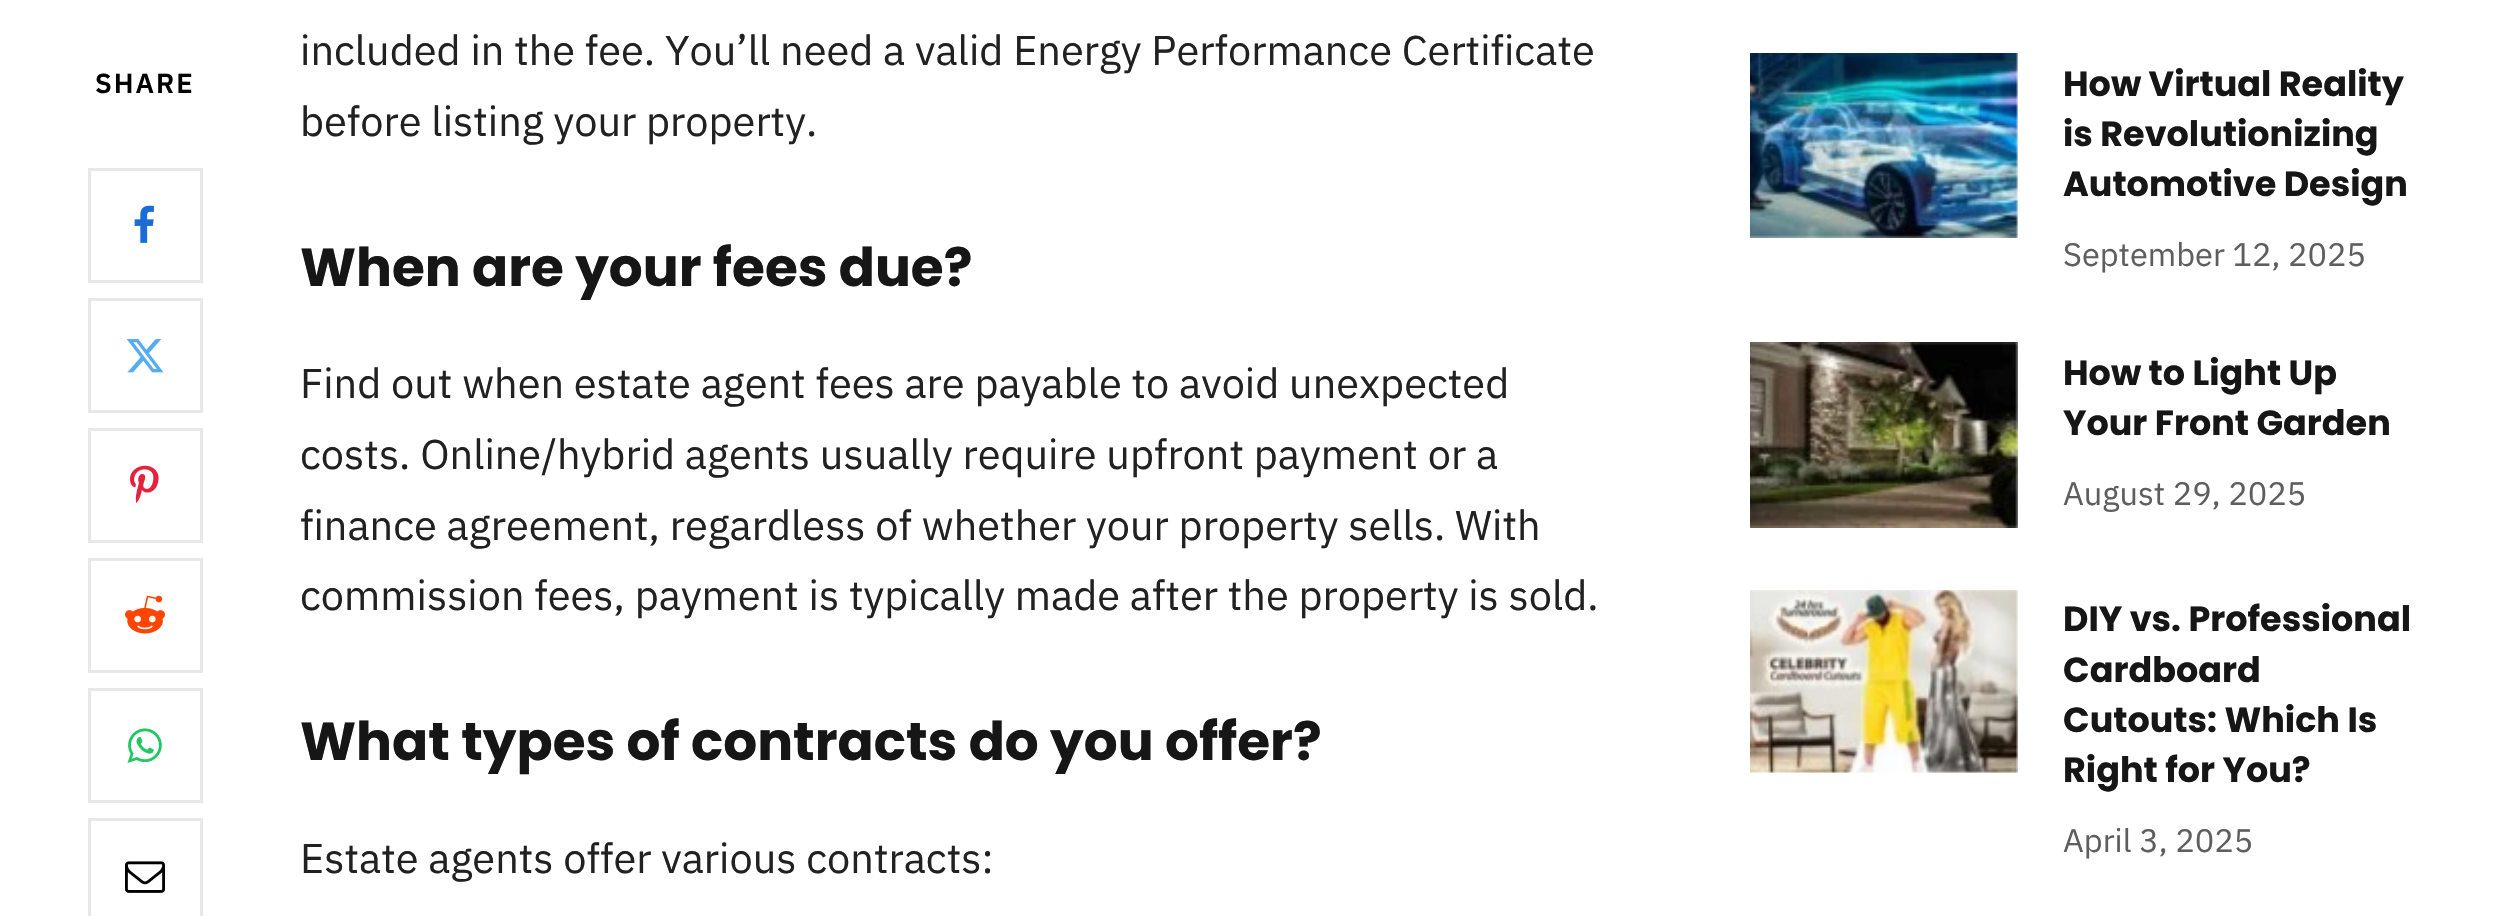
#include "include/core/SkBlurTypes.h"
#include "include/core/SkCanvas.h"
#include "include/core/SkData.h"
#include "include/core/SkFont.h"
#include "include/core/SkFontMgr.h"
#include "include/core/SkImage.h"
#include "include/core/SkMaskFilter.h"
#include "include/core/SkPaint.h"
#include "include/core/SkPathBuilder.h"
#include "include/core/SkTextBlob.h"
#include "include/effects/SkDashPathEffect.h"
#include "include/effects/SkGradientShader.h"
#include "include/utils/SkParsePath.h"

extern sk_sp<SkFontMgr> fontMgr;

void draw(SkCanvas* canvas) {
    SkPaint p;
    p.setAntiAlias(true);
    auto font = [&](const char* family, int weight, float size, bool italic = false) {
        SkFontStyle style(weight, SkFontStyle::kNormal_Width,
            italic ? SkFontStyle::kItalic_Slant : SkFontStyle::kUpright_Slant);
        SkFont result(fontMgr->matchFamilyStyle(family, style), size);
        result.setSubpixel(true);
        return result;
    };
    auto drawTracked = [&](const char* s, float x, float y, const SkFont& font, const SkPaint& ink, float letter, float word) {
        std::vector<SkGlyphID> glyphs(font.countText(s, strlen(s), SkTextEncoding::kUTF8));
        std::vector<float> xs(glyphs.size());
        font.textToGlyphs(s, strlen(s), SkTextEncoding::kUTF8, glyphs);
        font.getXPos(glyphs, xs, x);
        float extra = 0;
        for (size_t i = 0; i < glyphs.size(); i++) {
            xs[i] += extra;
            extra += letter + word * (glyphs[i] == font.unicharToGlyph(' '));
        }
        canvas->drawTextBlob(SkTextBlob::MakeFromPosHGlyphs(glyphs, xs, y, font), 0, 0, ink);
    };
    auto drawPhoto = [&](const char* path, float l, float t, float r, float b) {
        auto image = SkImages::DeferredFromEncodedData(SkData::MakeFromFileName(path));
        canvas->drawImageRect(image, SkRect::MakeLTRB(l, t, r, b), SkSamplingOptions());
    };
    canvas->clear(0xFFFFFFFF);
    auto font1 = font("IBM Plex Sans", 600, 27.5f);
    p.setColor(0xFF000000);
    drawTracked("SHARE", 95, 93, font1, p, 2, 0);
    p.setStyle(SkPaint::kStroke_Style);
    p.setStrokeWidth(3);
    p.setColor(0xFFE8E8E8);
    canvas->drawRect(SkRect::MakeLTRB(89.5f, 169.5f, 201.5f, 281.5f), p);
    drawPhoto("media/1.png", 134, 205, 154, 243);
    canvas->drawRect(SkRect::MakeLTRB(89.5f, 299.5f, 201.5f, 411.5f), p);
    drawPhoto("media/2.png", 126, 339, 164, 373);
    canvas->drawRect(SkRect::MakeLTRB(89.5f, 429.5f, 201.5f, 541.5f), p);
    drawPhoto("media/3.png", 130, 465, 159, 503);
    canvas->drawRect(SkRect::MakeLTRB(89.5f, 559.5f, 201.5f, 671.5f), p);
    drawPhoto("media/4.png", 125, 595, 165, 634);
    canvas->drawRect(SkRect::MakeLTRB(89.5f, 689.5f, 201.5f, 801.5f), p);
    drawPhoto("media/5.png", 127, 728, 162, 763);
    canvas->drawRect(SkRect::MakeLTRB(89.5f, 819.5f, 201.5f, 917.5f), p);
    drawPhoto("media/6.png", 125, 861, 165, 893);
    auto font2 = font("IBM Plex Sans", 400, 41.5f);
    p.setStyle(SkPaint::kFill_Style);
    p.setColor(0xFF212121);
    canvas->drawString("included in the fee. You’ll need a valid Energy Performance Certificate", 300, 65, font2, p);
    canvas->drawString("before listing your property.", 300, 136, font2, p);
    auto font3 = font("Poppins", 700, 53.3f);
    p.setColor(0xFF161616);
    canvas->drawString("When are your fees due?", 300, 286, font3, p);
    p.setColor(0xFF212121);
    {
        const struct { const char* s; float x, y; } items[] = {
            {"Find out when estate agent fees are payable to avoid unexpected", 300, 398},
            {"costs. Online/hybrid agents usually require upfront payment or a", 300, 469},
            {"finance agreement, regardless of whether your property sells. With", 300, 540},
            {"commission fees, payment is typically made after the property is sold.", 300, 610},
        };
        for (auto [s, x, y] : items) {
            canvas->drawString(s, x, y, font2, p);
        }
    }
    p.setColor(0xFF161616);
    canvas->drawString("What types of contracts do you offer?", 300, 760, font3, p);
    p.setColor(0xFF212121);
    canvas->drawString("Estate agents offer various contracts:", 300, 873, font2, p);
    drawPhoto("media/7.png", 1750, 53, 2018, 238);
    auto font4 = font("Poppins", 700, 35);
    p.setColor(0xFF161616);
    {
        const struct { const char* s; float x, y; } items[] = {
            {"How Virtual Reality", 2063, 96},
            {"is Revolutionizing", 2063, 146},
            {"Automotive Design", 2063, 196},
        };
        for (auto [s, x, y] : items) {
            canvas->drawString(s, x, y, font4, p);
        }
    }
    auto font5 = font("IBM Plex Sans", 400, 32.5f);
    p.setColor(0xFF5E5E5E);
    canvas->drawString("September 12, 2025", 2063, 266, font5, p);
    drawPhoto("media/8.png", 1750, 342, 2018, 528);
    p.setColor(0xFF161616);
    canvas->drawString("How to Light Up", 2063, 385, font4, p);
    canvas->drawString("Your Front Garden", 2063, 435, font4, p);
    p.setColor(0xFF5E5E5E);
    canvas->drawString("August 29, 2025", 2063, 505, font5, p);
    drawPhoto("media/9.png", 1750, 590, 2018, 773);
    p.setColor(0xFF161616);
    {
        const struct { const char* s; float x, y; } items[] = {
            {"DIY vs. Professional", 2063, 631},
            {"Cardboard", 2063, 682},
            {"Cutouts: Which Is", 2063, 732},
            {"Right for You?", 2063, 782},
        };
        for (auto [s, x, y] : items) {
            canvas->drawString(s, x, y, font4, p);
        }
    }
    p.setColor(0xFF5E5E5E);
    canvas->drawString("April 3, 2025", 2063, 852, font5, p);
}
